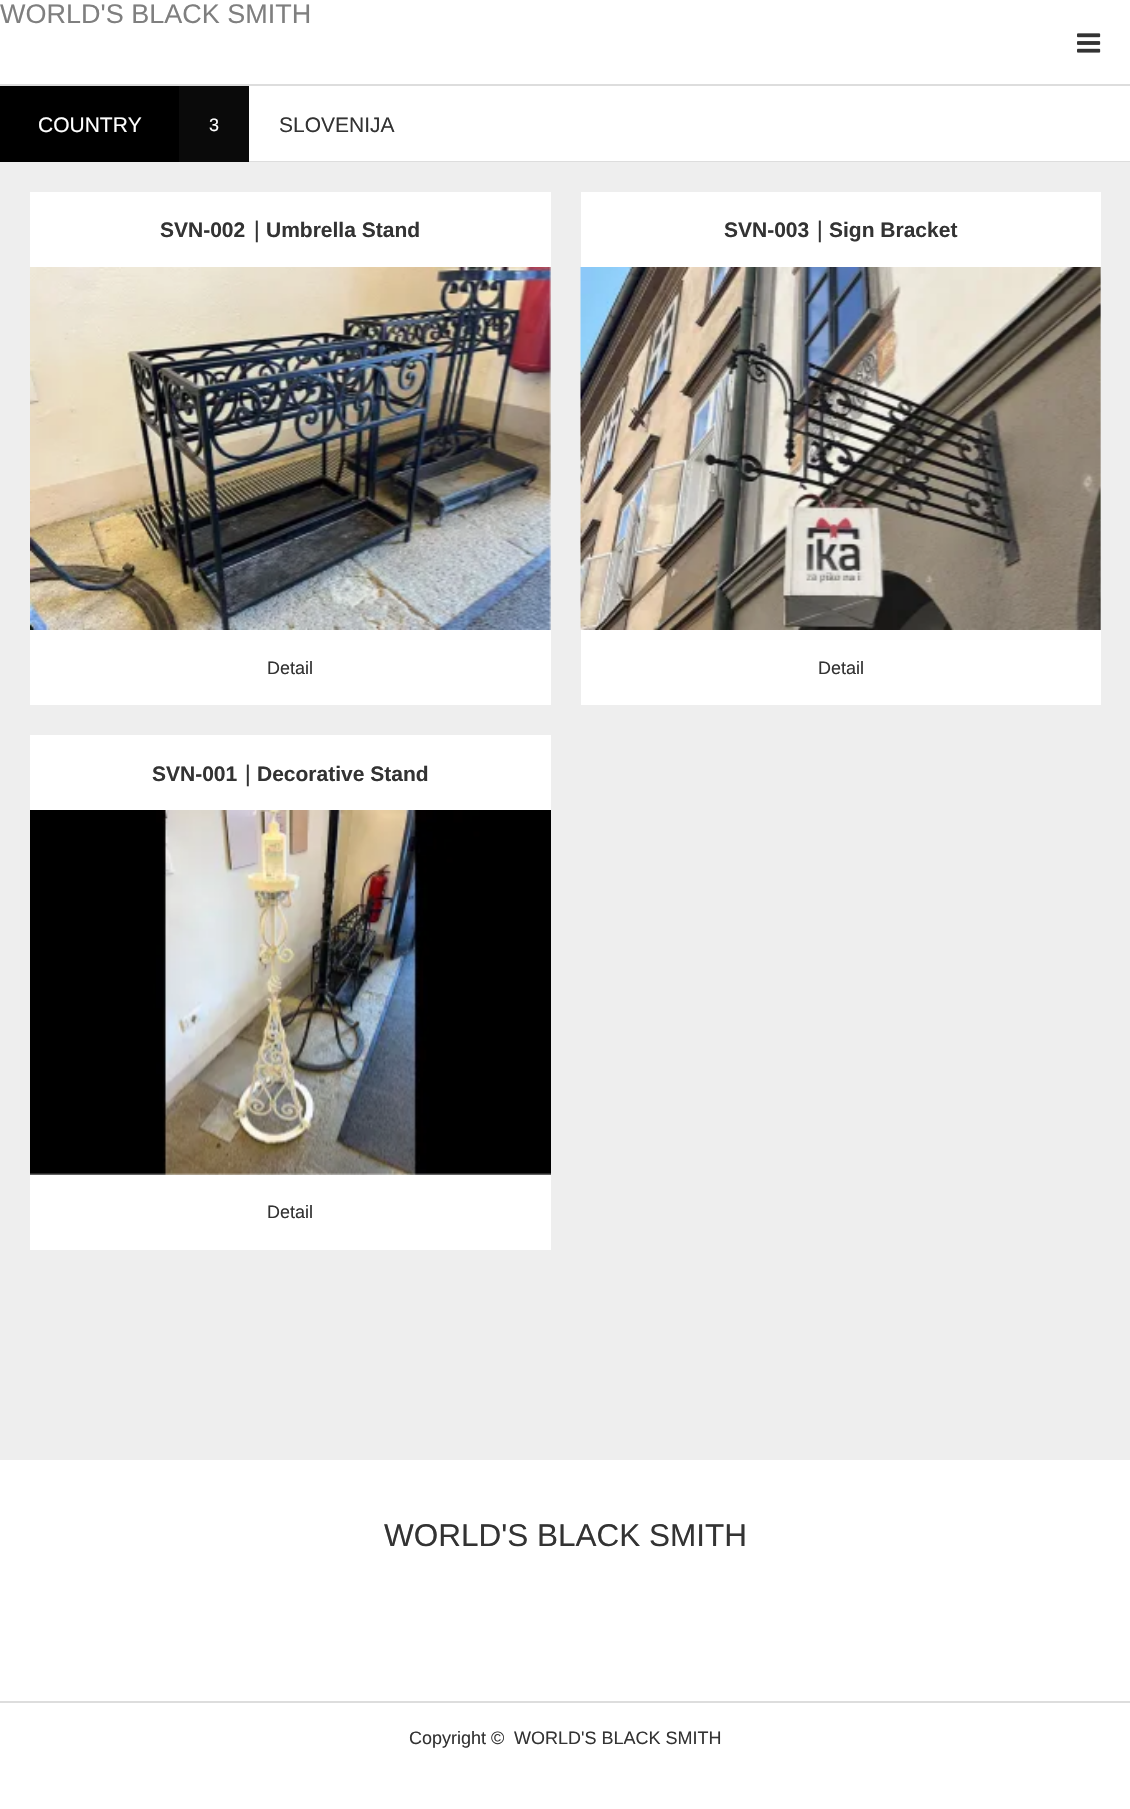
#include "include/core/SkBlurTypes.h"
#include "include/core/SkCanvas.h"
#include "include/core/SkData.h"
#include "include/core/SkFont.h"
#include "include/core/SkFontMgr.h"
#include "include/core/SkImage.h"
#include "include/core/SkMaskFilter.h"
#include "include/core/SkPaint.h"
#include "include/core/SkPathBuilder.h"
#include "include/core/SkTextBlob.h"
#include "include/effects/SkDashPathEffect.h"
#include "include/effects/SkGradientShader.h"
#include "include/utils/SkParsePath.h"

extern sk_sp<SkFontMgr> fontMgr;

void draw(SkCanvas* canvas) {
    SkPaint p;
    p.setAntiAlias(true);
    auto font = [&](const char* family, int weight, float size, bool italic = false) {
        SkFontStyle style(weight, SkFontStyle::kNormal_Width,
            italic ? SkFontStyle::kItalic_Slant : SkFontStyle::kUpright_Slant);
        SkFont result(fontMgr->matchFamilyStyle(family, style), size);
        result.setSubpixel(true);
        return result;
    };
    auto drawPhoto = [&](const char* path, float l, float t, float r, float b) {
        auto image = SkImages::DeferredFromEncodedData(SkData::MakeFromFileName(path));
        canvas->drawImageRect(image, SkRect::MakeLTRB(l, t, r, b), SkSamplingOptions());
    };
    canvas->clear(0xFFFFFFFF);
    p.setColor(0xFFDDDDDD);
    canvas->drawRect(SkRect::MakeLTRB(0, 84, 1130, 86), p);
    auto font1 = font("Liberation Sans", 400, 27);
    p.setColor(0xFF7F7F7F);
    canvas->drawString("WORLD'S BLACK SMITH", 0, 23, font1, p);
    drawPhoto("media/1.png", 1077, 33, 1101, 53);
    p.setColor(0xFFDDDDDD);
    canvas->drawRect(SkRect::MakeLTRB(249, 161, 1130, 162), p);
    p.setColor(0xFF000000);
    canvas->drawRect(SkRect::MakeLTRB(0, 86, 179, 162), p);
    auto font2 = font("Liberation Sans", 400, 21);
    p.setColor(0xFFFFFFFF);
    canvas->drawString("COUNTRY", 38, 132, font2, p);
    p.setColor(0xFF0A0A0A);
    canvas->drawRect(SkRect::MakeLTRB(179, 86, 249, 162), p);
    auto font3 = font("Liberation Sans", 400, 18);
    p.setColor(0xFFFFFFFF);
    canvas->drawString("3", 209, 131, font3, p);
    p.setColor(0xFF333333);
    canvas->drawString("SLOVENIJA", 279, 132, font2, p);
    p.setColor(0xFFEEEEEE);
    canvas->drawRect(SkRect::MakeLTRB(0, 162, 1130, 1460), p);
    p.setColor(0xFFFFFFFF);
    canvas->drawRect(SkRect::MakeLTRB(30, 192, 551, 267), p);
    auto font4 = font("Liberation Sans", 700, 21);
    p.setColor(0xFF333333);
    canvas->drawString("SVN-002", 160, 237, font4, p);
    auto font5 = font("WenQuanYi Zen Hei", 700, 21);
    canvas->drawString("｜", 246, 237, font5, p);
    canvas->drawString("Umbrella Stand", 266, 237, font4, p);
    drawPhoto("media/2.png", 30, 267, 551, 630);
    p.setColor(0xFFFFFFFF);
    canvas->drawRect(SkRect::MakeLTRB(30, 630, 551, 705), p);
    p.setColor(0xFF333333);
    canvas->drawString("Detail", 267, 674, font3, p);
    p.setColor(0xFFFFFFFF);
    canvas->drawRect(SkRect::MakeLTRB(581, 192, 1101, 267), p);
    p.setColor(0xFF333333);
    canvas->drawString("SVN-003", 724, 237, font4, p);
    canvas->drawString("｜", 809, 237, font5, p);
    canvas->drawString("Sign Bracket", 829, 237, font4, p);
    drawPhoto("media/3.png", 580, 267, 1101, 630);
    p.setColor(0xFFFFFFFF);
    canvas->drawRect(SkRect::MakeLTRB(581, 630, 1101, 705), p);
    p.setColor(0xFF333333);
    canvas->drawString("Detail", 818, 674, font3, p);
    p.setColor(0xFFFFFFFF);
    canvas->drawRect(SkRect::MakeLTRB(30, 735, 551, 810), p);
    p.setColor(0xFF333333);
    canvas->drawString("SVN-001", 152, 781, font4, p);
    canvas->drawString("｜", 237, 781, font5, p);
    canvas->drawString("Decorative Stand", 257, 781, font4, p);
    drawPhoto("media/4.png", 30, 810, 551, 1175);
    p.setColor(0xFFFFFFFF);
    canvas->drawRect(SkRect::MakeLTRB(30, 1175, 551, 1250), p);
    p.setColor(0xFF333333);
    canvas->drawString("Detail", 267, 1218, font3, p);
    auto font6 = font("Liberation Sans", 400, 31.5f);
    canvas->drawString("WORLD'S BLACK SMITH", 384, 1546, font6, p);
    p.setColor(0xFFDDDDDD);
    canvas->drawRect(SkRect::MakeLTRB(0, 1701, 1130, 1703), p);
    p.setColor(0xFF333333);
    canvas->drawString("Copyright ©", 409, 1744, font3, p);
    canvas->drawString("WORLD'S BLACK SMITH", 514, 1744, font3, p);
}
